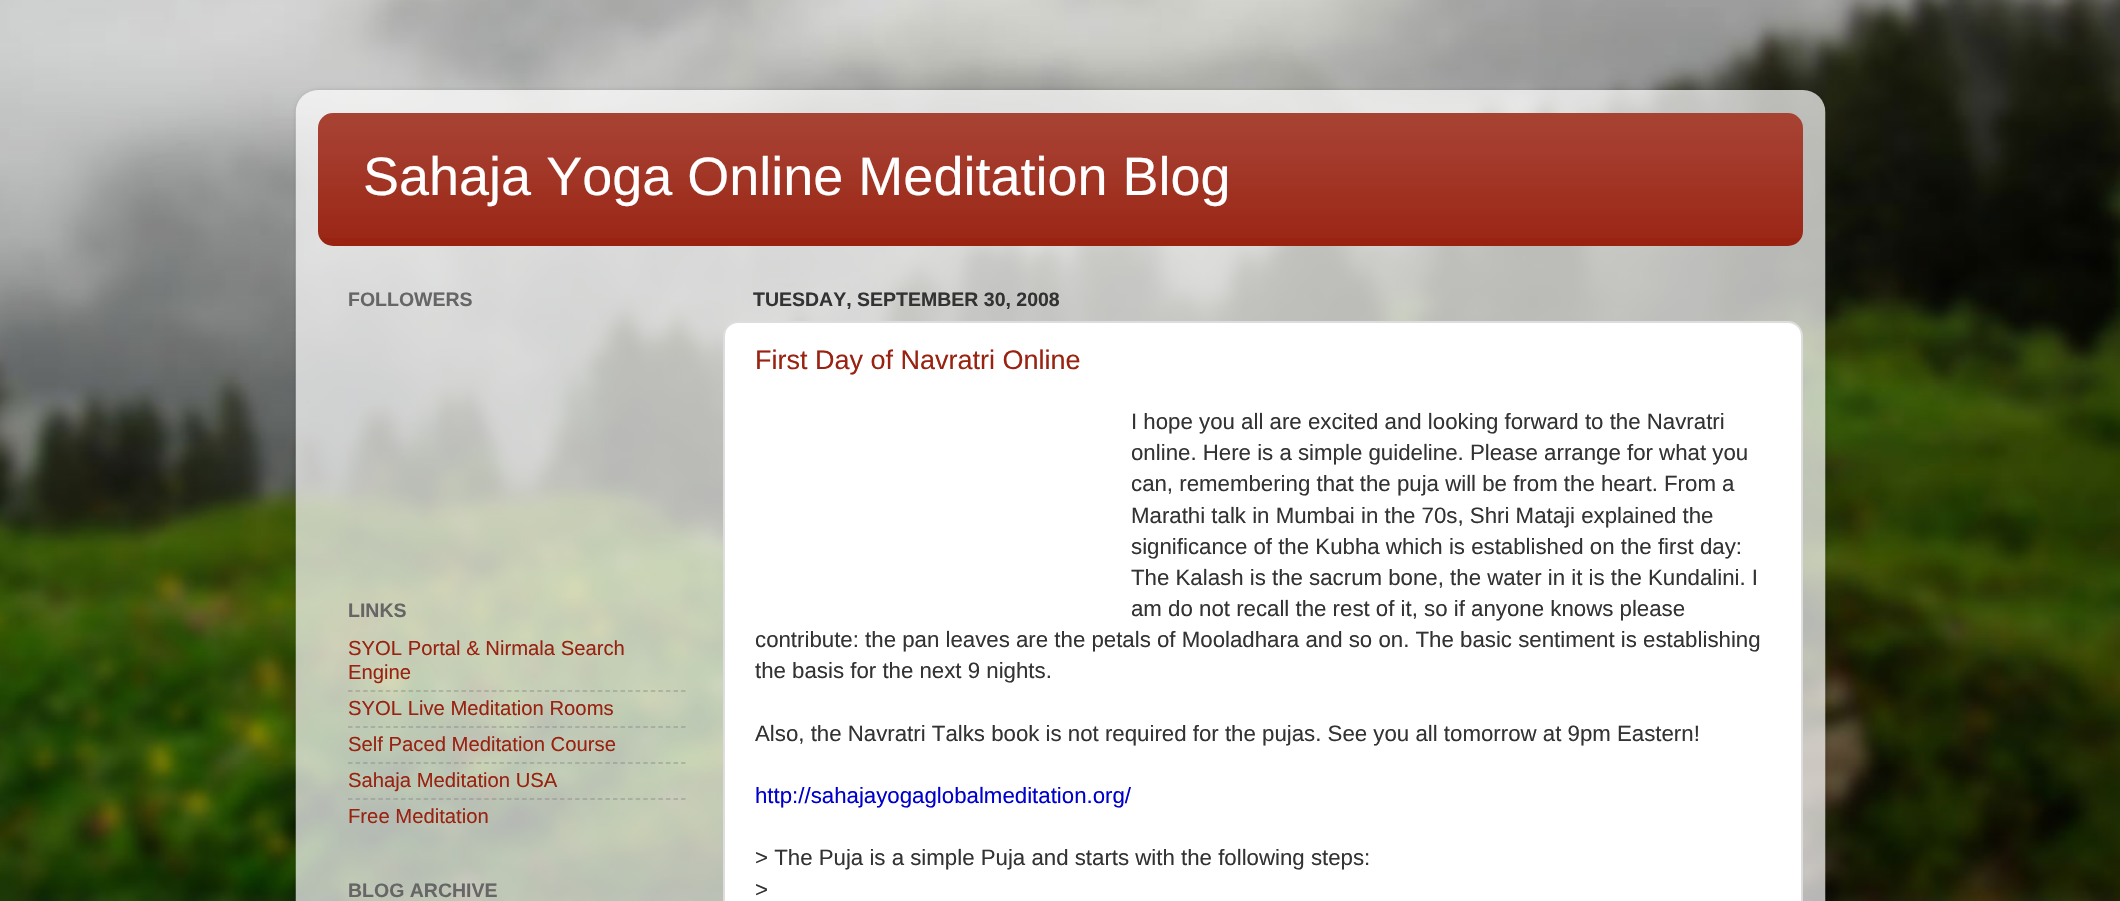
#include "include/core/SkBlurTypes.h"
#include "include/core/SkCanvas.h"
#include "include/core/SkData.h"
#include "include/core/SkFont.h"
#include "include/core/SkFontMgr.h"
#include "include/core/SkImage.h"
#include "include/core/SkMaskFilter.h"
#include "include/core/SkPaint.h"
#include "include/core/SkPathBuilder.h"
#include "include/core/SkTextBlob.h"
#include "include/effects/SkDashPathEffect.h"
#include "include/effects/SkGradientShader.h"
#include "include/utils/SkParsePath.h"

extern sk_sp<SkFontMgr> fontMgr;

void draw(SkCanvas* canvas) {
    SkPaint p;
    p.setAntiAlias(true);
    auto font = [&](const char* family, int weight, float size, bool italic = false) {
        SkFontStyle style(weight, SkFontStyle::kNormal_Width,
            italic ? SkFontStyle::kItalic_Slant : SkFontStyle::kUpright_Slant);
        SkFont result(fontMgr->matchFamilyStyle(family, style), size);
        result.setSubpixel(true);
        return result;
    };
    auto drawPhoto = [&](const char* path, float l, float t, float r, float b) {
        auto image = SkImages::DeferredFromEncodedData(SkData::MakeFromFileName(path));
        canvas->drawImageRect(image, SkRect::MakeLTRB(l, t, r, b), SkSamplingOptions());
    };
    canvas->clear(0xFFFFFFFF);
    drawPhoto("media/1.png", 0, 0, 2120, 901);
    canvas->save();
    canvas->clipPath(SkPathBuilder(SkPathFillType::kEvenOdd).moveTo(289, 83).lineTo(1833, 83).lineTo(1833, 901).lineTo(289, 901).close().moveTo(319, 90).lineTo(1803, 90).cubicTo(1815.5f, 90, 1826, 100.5f, 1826, 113).lineTo(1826, 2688).cubicTo(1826, 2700.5f, 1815.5f, 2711, 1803, 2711).lineTo(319, 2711).cubicTo(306.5f, 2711, 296, 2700.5f, 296, 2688).lineTo(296, 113).cubicTo(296, 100.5f, 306.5f, 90, 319, 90).close().detach(), true);
    p.setColor(0x26000000);
    p.setMaskFilter(SkMaskFilter::MakeBlur(kNormal_SkBlurStyle, 2));
    canvas->drawRoundRect(SkRect::MakeLTRB(296, 90, 1826, 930), 23, 23, p);
    p.setMaskFilter(nullptr);
    canvas->restore();
    drawPhoto("media/2.png", 295, 90, 1826, 901);
    p.setColor(0xFF992211);
    canvas->drawRoundRect(SkRect::MakeLTRB(318, 113, 1803, 246), 15, 15, p);
    drawPhoto("media/3.png", 318, 113, 1803, 238);
    auto font1 = font("Liberation Sans", 400, 54);
    p.setColor(0xFFFFFFFF);
    canvas->drawString("Sahaja Yoga Online Meditation Blog", 363, 195, font1, p);
    auto font2 = font("Liberation Sans", 700, 19.5f);
    p.setColor(0xFF666666);
    canvas->drawString("FOLLOWERS", 348, 306, font2, p);
    canvas->drawString("LINKS", 348, 617, font2, p);
    auto font3 = font("Liberation Sans", 400, 20.25f);
    p.setColor(0xFF992211);
    canvas->drawString("SYOL Portal & Nirmala Search", 348, 655, font3, p);
    canvas->drawString("Engine", 348, 679, font3, p);
    p.setStyle(SkPaint::kStroke_Style);
    p.setStrokeWidth(1.5f);
    p.setColor(0x80808080);
    p.setPathEffect(SkDashPathEffect::Make({{4.5f, 3.07f}}, 0));
    canvas->drawPath(SkPathBuilder().moveTo(348, 691).lineTo(685.5f, 691).detach(), p);
    p.setPathEffect(nullptr);
    p.setStyle(SkPaint::kFill_Style);
    p.setColor(0xFF992211);
    canvas->drawString("SYOL Live Meditation Rooms", 348, 715, font3, p);
    p.setStyle(SkPaint::kStroke_Style);
    p.setColor(0x80808080);
    p.setPathEffect(SkDashPathEffect::Make({{4.5f, 3.07f}}, 0));
    canvas->drawPath(SkPathBuilder().moveTo(348, 727).lineTo(685.5f, 727).detach(), p);
    p.setPathEffect(nullptr);
    p.setStyle(SkPaint::kFill_Style);
    p.setColor(0xFF992211);
    canvas->drawString("Self Paced Meditation Course", 348, 751, font3, p);
    p.setStyle(SkPaint::kStroke_Style);
    p.setColor(0x80808080);
    p.setPathEffect(SkDashPathEffect::Make({{4.5f, 3.07f}}, 0));
    canvas->drawPath(SkPathBuilder().moveTo(348, 763).lineTo(685.5f, 763).detach(), p);
    p.setPathEffect(nullptr);
    p.setStyle(SkPaint::kFill_Style);
    p.setColor(0xFF992211);
    canvas->drawString("Sahaja Meditation USA", 348, 787, font3, p);
    p.setStyle(SkPaint::kStroke_Style);
    p.setColor(0x80808080);
    p.setPathEffect(SkDashPathEffect::Make({{4.5f, 3.07f}}, 0));
    canvas->drawPath(SkPathBuilder().moveTo(348, 799).lineTo(685.5f, 799).detach(), p);
    p.setPathEffect(nullptr);
    p.setStyle(SkPaint::kFill_Style);
    p.setColor(0xFF992211);
    canvas->drawString("Free Meditation", 348, 823, font3, p);
    p.setColor(0xFF666666);
    canvas->drawString("BLOG ARCHIVE", 348, 897, font2, p);
    p.setColor(0xFF333333);
    canvas->drawString("TUESDAY, SEPTEMBER 30, 2008", 753, 306, font2, p);
    p.setColor(0xFFFFFFFF);
    canvas->drawRoundRect(SkRect::MakeLTRB(724, 322, 1802, 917), 14, 14, p);
    p.setStyle(SkPaint::kStroke_Style);
    p.setStrokeWidth(2);
    p.setColor(0xFFDDDDDD);
    canvas->drawRoundRect(SkRect::MakeLTRB(724, 322, 1802, 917), 14, 14, p);
    auto font4 = font("Liberation Sans", 400, 27);
    p.setStyle(SkPaint::kFill_Style);
    p.setColor(0xFF992211);
    canvas->drawString("First Day of Navratri Online", 755, 369, font4, p);
    auto font5 = font("Liberation Sans", 400, 22.25f);
    p.setColor(0xFF333333);
    {
        const struct { const char* s; float x, y; } items[] = {
            {"I hope you all are excited and looking forward to the Navratri", 1131, 429},
            {"online. Here is a simple guideline. Please arrange for what you", 1131, 460},
            {"can, remembering that the puja will be from the heart. From a", 1131, 491},
            {"Marathi talk in Mumbai in the 70s, Shri Mataji explained the", 1131, 523},
            {"significance of the Kubha which is established on the first day:", 1131, 554},
            {"The Kalash is the sacrum bone, the water in it is the Kundalini. I", 1131, 585},
            {"am do not recall the rest of it, so if anyone knows please", 1131, 616},
            {"contribute: the pan leaves are the petals of Mooladhara and so on. The basic sentiment is establishing", 755, 647},
            {"the basis for the next 9 nights.", 755, 678},
            {"Also, the Navratri Talks book is not required for the pujas. See you all tomorrow at 9pm Eastern!", 755, 741},
        };
        for (auto [s, x, y] : items) {
            canvas->drawString(s, x, y, font5, p);
        }
    }
    p.setColor(0xFF0000CC);
    canvas->drawString("http://sahajayogaglobalmeditation.org/", 755, 803, font5, p);
    p.setColor(0xFF333333);
    canvas->drawString("> The Puja is a simple Puja and starts with the following steps:", 755, 865, font5, p);
    canvas->drawString(">", 755, 897, font5, p);
}
